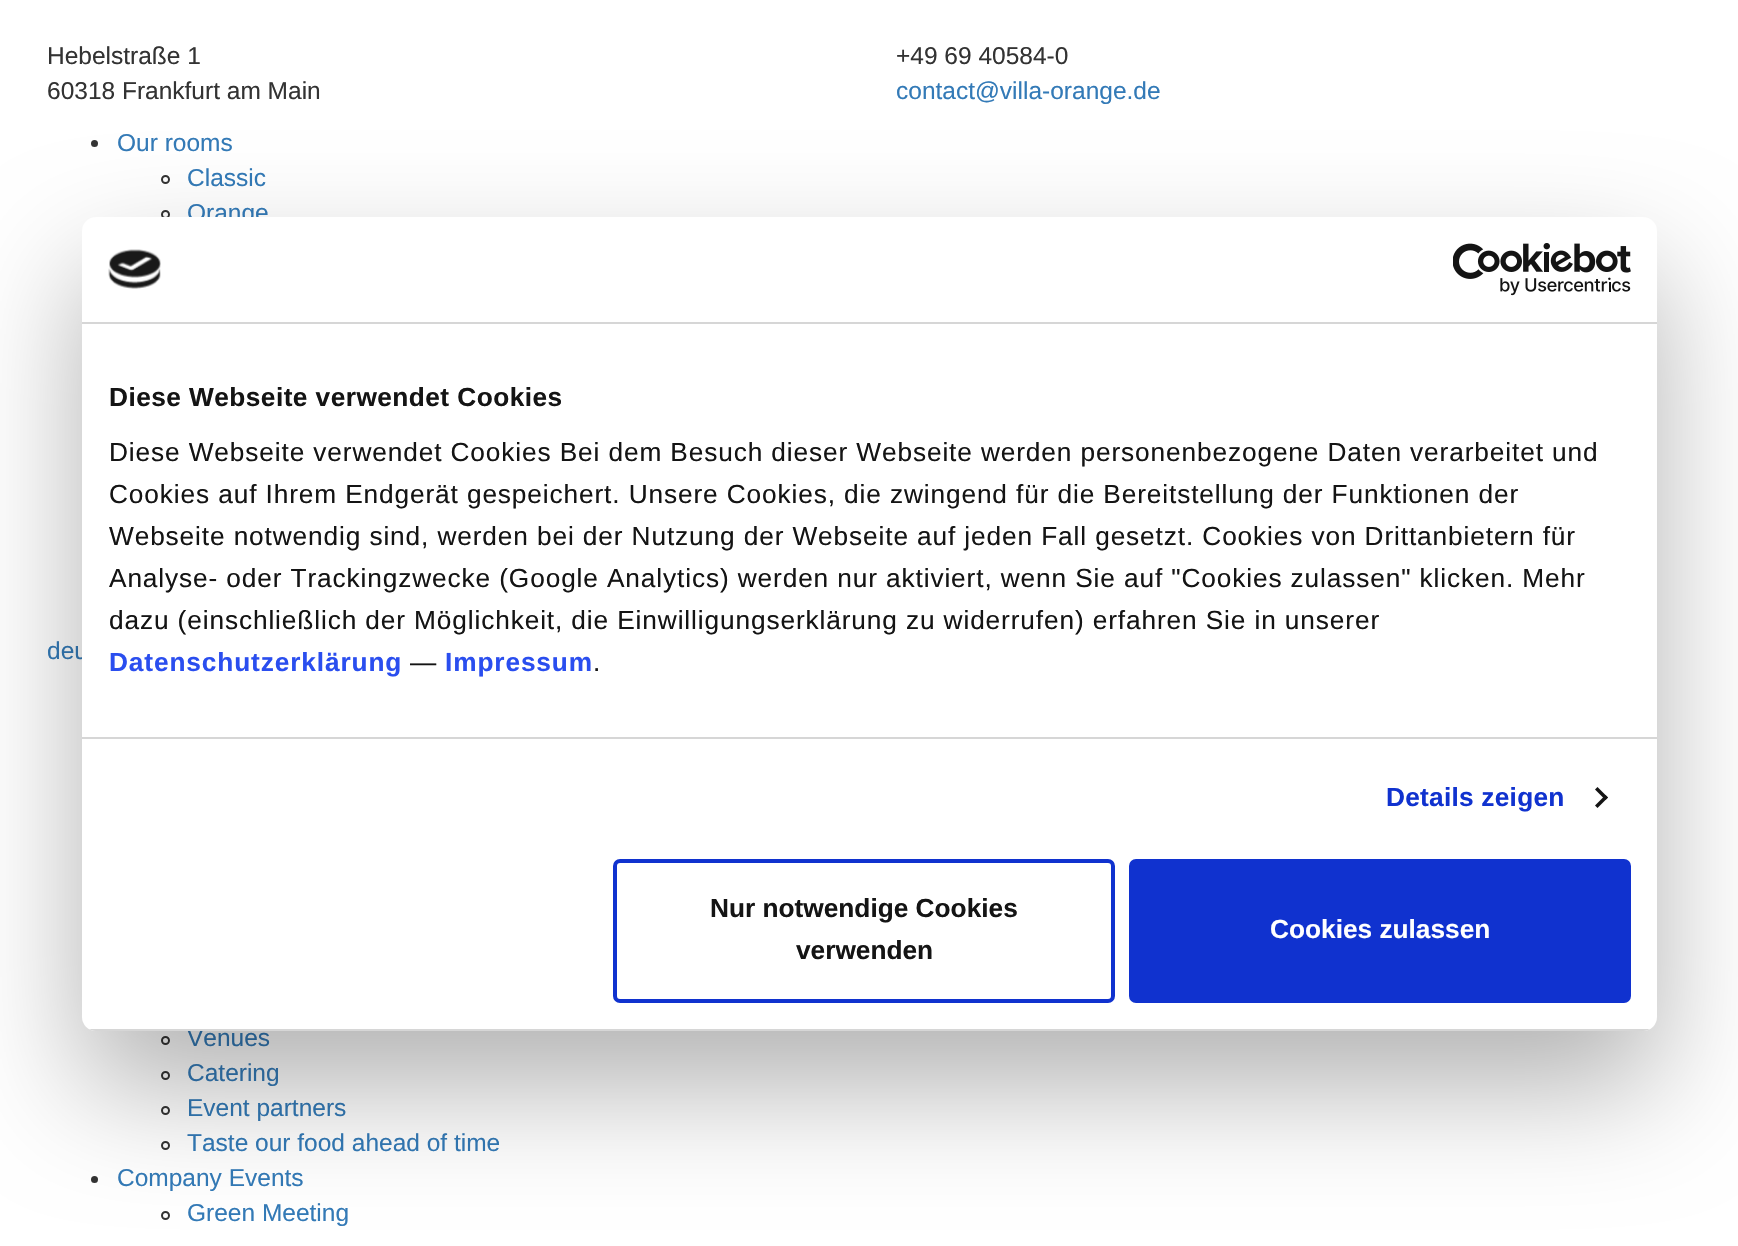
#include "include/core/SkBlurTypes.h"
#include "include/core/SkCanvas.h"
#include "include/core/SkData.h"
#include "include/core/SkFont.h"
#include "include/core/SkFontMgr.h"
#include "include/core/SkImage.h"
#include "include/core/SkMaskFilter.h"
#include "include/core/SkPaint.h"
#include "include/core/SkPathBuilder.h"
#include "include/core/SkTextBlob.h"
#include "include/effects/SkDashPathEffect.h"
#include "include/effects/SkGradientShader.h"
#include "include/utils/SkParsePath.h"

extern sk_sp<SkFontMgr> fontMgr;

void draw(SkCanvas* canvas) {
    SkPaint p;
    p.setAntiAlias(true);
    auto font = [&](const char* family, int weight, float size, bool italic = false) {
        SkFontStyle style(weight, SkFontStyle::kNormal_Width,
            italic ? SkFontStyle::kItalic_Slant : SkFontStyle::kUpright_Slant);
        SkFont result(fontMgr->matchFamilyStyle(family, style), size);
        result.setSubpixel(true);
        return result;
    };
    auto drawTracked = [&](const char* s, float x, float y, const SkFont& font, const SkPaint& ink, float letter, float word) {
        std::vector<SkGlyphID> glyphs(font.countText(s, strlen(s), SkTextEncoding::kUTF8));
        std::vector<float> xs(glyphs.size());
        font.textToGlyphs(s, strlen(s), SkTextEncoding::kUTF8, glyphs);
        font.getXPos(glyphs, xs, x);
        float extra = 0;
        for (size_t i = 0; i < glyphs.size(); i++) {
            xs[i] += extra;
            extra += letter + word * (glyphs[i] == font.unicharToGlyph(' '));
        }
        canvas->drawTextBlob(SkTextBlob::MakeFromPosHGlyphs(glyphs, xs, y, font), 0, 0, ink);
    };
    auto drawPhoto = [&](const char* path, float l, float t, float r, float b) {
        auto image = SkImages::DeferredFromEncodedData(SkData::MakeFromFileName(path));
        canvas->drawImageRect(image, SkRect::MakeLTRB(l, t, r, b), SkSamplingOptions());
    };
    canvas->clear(0xFFFFFFFF);
    auto font1 = font("Liberation Sans", 400, 24.5f);
    p.setColor(0xFF333333);
    {
        const struct { const char* s; float x, y; } items[] = {
            {"Hebelstraße 1", 47, 64},
            {"60318 Frankfurt am Main", 47, 99},
            {"+49 69 40584-0", 896, 64},
        };
        for (auto [s, x, y] : items) {
            canvas->drawString(s, x, y, font1, p);
        }
    }
    p.setColor(0xFF337AB7);
    canvas->drawString("contact@villa-orange.de", 896, 99, font1, p);
    p.setColor(0xFF333333);
    canvas->drawCircle(94.5f, 143.5f, 3.5f, p);
    p.setColor(0xFF337AB7);
    canvas->drawString("Our rooms", 117, 151, font1, p);
    p.setStyle(SkPaint::kStroke_Style);
    p.setStrokeWidth(2);
    p.setColor(0xFF333333);
    canvas->drawCircle(165.5f, 179.5f, 3.5f, p);
    p.setStyle(SkPaint::kFill_Style);
    p.setColor(0xFF337AB7);
    canvas->drawString("Classic", 187, 186, font1, p);
    p.setStyle(SkPaint::kStroke_Style);
    p.setColor(0xFF333333);
    canvas->drawCircle(165.5f, 214.5f, 3.5f, p);
    p.setStyle(SkPaint::kFill_Style);
    p.setColor(0xFF337AB7);
    canvas->drawString("Orange", 187, 221, font1, p);
    canvas->drawString("deu", 47, 659, font1, p);
    p.setStyle(SkPaint::kStroke_Style);
    p.setColor(0xFF333333);
    canvas->drawCircle(165.5f, 1040.5f, 3.5f, p);
    p.setStyle(SkPaint::kFill_Style);
    p.setColor(0xFF337AB7);
    canvas->drawString("Venues", 187, 1046, font1, p);
    p.setStyle(SkPaint::kStroke_Style);
    p.setColor(0xFF333333);
    canvas->drawCircle(165.5f, 1075.5f, 3.5f, p);
    p.setStyle(SkPaint::kFill_Style);
    p.setColor(0xFF337AB7);
    canvas->drawString("Catering", 187, 1081, font1, p);
    p.setStyle(SkPaint::kStroke_Style);
    p.setColor(0xFF333333);
    canvas->drawCircle(165.5f, 1110.5f, 3.5f, p);
    p.setStyle(SkPaint::kFill_Style);
    p.setColor(0xFF337AB7);
    canvas->drawString("Event partners", 187, 1116, font1, p);
    p.setStyle(SkPaint::kStroke_Style);
    p.setColor(0xFF333333);
    canvas->drawCircle(165.5f, 1145.5f, 3.5f, p);
    p.setStyle(SkPaint::kFill_Style);
    p.setColor(0xFF337AB7);
    canvas->drawString("Taste our food ahead of time", 187, 1151, font1, p);
    p.setColor(0xFF333333);
    canvas->drawCircle(94.5f, 1179.5f, 3.5f, p);
    p.setColor(0xFF337AB7);
    canvas->drawString("Company Events", 117, 1186, font1, p);
    p.setStyle(SkPaint::kStroke_Style);
    p.setColor(0xFF333333);
    canvas->drawCircle(165.5f, 1215.5f, 3.5f, p);
    p.setStyle(SkPaint::kFill_Style);
    p.setColor(0xFF337AB7);
    canvas->drawString("Green Meeting", 187, 1221, font1, p);
    p.setColor(0x4D000000);
    p.setMaskFilter(SkMaskFilter::MakeBlur(kNormal_SkBlurStyle, 59.5f));
    canvas->drawRoundRect(SkRect::MakeLTRB(82, 273, 1657, 1087), 14, 14, p);
    p.setMaskFilter(nullptr);
    p.setColor(0xFFFFFFFF);
    canvas->drawRoundRect(SkRect::MakeLTRB(82, 217, 1657, 1031), 14, 14, p);
    p.setColor(0xFFD6D6D6);
    canvas->drawRect(SkRect::MakeLTRB(82, 322, 1657, 324), p);
    drawPhoto("media/1.png", 108, 249, 161, 289);
    drawPhoto("media/2.png", 1453, 243, 1631, 296);
    canvas->drawRect(SkRect::MakeLTRB(82, 737, 1657, 739), p);
    auto font2 = font("Liberation Sans", 700, 26.25f);
    p.setColor(0xFF141414);
    drawTracked("Diese Webseite verwendet Cookies", 109, 406, font2, p, 0.45f, 0);
    auto font3 = font("Liberation Sans", 400, 26.25f);
    {
        const struct { const char* s; float x, y; } items[] = {
            {"Diese Webseite verwendet Cookies Bei dem Besuch dieser Webseite werden personenbezogene Daten verarbeitet und", 109, 461},
            {"Cookies auf Ihrem Endgerät gespeichert. Unsere Cookies, die zwingend für die Bereitstellung der Funktionen der", 109, 503},
            {"Webseite notwendig sind, werden bei der Nutzung der Webseite auf jeden Fall gesetzt. Cookies von Drittanbietern für", 109, 545},
            {"Analyse- oder Trackingzwecke (Google Analytics) werden nur aktiviert, wenn Sie auf \"Cookies zulassen\" klicken. Mehr", 109, 587},
            {"dazu (einschließlich der Möglichkeit, die Einwilligungserklärung zu widerrufen) erfahren Sie in unserer", 109, 629},
        };
        for (auto [s, x, y] : items) {
            drawTracked(s, x, y, font3, p, 0.88f, 0);
        }
    }
    p.setColor(0xFF2A4EEF);
    drawTracked("Datenschutzerklärung", 109, 671, font2, p, 0.88f, 0);
    p.setColor(0xFF141414);
    drawTracked("—", 410, 671, font3, p, 0.88f, 0);
    p.setColor(0xFF2A4EEF);
    drawTracked("Impressum", 445, 671, font2, p, 0.88f, 0);
    p.setColor(0xFF141414);
    drawTracked(".", 593, 671, font3, p, 0.88f, 0);
    p.setColor(0xFF1032CF);
    drawTracked("Details zeigen", 1386, 806, font2, p, 0.25f, 0);
    p.setColor(0xFF141414);
    canvas->drawPath(SkPathBuilder().moveTo(1597.5f, 787).lineTo(1608, 797.5f).lineTo(1605.5f, 800).lineTo(1595, 789.5f).close().detach(), p);
    canvas->drawPath(SkPathBuilder().moveTo(1605.5f, 795).lineTo(1608, 797.5f).lineTo(1597.5f, 808).lineTo(1595, 805.5f).close().detach(), p);
    canvas->save();
    canvas->clipPath(SkPathBuilder().moveTo(96, 217).lineTo(1643, 217).cubicTo(1650.5f, 217, 1657, 223.5f, 1657, 231).lineTo(1657, 1017).cubicTo(1657, 1024.5f, 1650.5f, 1031, 1643, 1031).lineTo(96, 1031).cubicTo(88.5f, 1031, 82, 1024.5f, 82, 1017).lineTo(82, 231).cubicTo(82, 223.5f, 88.5f, 217, 96, 217).close().detach(), true);
    p.setColor(0xFFD6D6D6);
    canvas->drawRect(SkRect::MakeLTRB(82, 1029, 1657, 1031), p);
    canvas->restore();
    p.setStyle(SkPaint::kStroke_Style);
    p.setStrokeWidth(4);
    p.setColor(0xFF1032CF);
    canvas->drawRoundRect(SkRect::MakeLTRB(615, 861, 1113, 1001), 5, 5, p);
    p.setStyle(SkPaint::kFill_Style);
    p.setColor(0xFF141414);
    canvas->drawString("Nur notwendige Cookies", 710, 917, font2, p);
    canvas->drawString("verwenden", 796, 959, font2, p);
    p.setColor(0xFF1032CF);
    canvas->drawRoundRect(SkRect::MakeLTRB(1131, 861, 1629, 1001), 5, 5, p);
    p.setStyle(SkPaint::kStroke_Style);
    canvas->drawRoundRect(SkRect::MakeLTRB(1131, 861, 1629, 1001), 5, 5, p);
    p.setStyle(SkPaint::kFill_Style);
    p.setColor(0xFFFFFFFF);
    canvas->drawString("Cookies zulassen", 1270, 938, font2, p);
}
